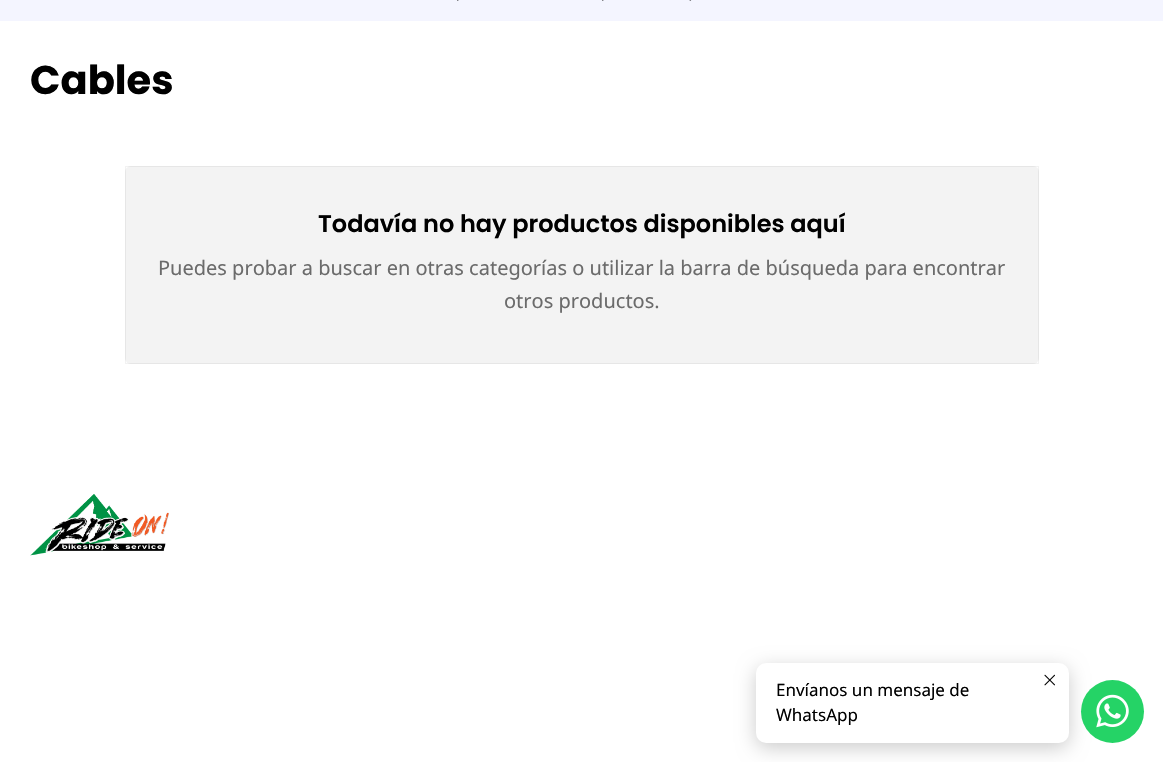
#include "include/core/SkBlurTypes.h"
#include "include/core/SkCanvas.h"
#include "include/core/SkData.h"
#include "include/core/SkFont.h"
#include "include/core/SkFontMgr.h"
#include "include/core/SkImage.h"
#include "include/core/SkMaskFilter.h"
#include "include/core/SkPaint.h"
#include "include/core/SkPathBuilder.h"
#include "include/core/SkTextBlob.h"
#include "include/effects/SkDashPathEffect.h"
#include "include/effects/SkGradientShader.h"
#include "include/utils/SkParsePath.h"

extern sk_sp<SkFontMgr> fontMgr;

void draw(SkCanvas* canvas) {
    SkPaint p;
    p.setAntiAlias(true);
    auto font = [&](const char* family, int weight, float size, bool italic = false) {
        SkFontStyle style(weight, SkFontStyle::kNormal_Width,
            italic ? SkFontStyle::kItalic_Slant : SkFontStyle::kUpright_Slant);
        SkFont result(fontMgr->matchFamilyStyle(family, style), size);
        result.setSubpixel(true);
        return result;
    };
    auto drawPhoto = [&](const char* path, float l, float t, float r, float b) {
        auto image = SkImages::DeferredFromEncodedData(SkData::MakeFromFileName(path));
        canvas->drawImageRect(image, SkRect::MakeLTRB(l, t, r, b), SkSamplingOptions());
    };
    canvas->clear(0xFFFFFFFF);
    p.setColor(0xFFF4F5FF);
    canvas->drawRect(SkRect::MakeLTRB(0, 0, 1163, 21), p);
    drawPhoto("media/1.png", 457, 0, 459, 1);
    drawPhoto("media/1.png", 602, 0, 604, 1);
    drawPhoto("media/2.png", 689, 0, 692, 1);
    auto font1 = font("Poppins", 700, 40);
    p.setColor(0xFF000000);
    canvas->drawString("Cables", 30, 94, font1, p);
    p.setColor(0xFFF3F3F3);
    canvas->drawRoundRect(SkRect::MakeLTRB(125, 166, 1039, 364), 6, 6, p);
    p.setStyle(SkPaint::kStroke_Style);
    p.setStrokeWidth(1);
    p.setColor(0x0D000000);
    canvas->drawRect(SkRect::MakeLTRB(125.5f, 166.5f, 1038.5f, 363.5f), p);
    auto font2 = font("Poppins", 600, 24);
    p.setStyle(SkPaint::kFill_Style);
    p.setColor(0xFF000000);
    canvas->drawString("Todavía no hay productos disponibles aquí", 318, 232, font2, p);
    auto font3 = font("Noto Sans", 400, 20);
    p.setColor(0xFF6B6B6B);
    canvas->drawString("Puedes probar a buscar en otras categorías o utilizar la barra de búsqueda para encontrar", 158, 275, font3, p);
    canvas->drawString("otros productos.", 504, 308, font3, p);
    drawPhoto("media/3.png", 30, 494, 169, 556);
    p.setColor(0x33000000);
    p.setMaskFilter(SkMaskFilter::MakeBlur(kNormal_SkBlurStyle, 9.5f));
    canvas->drawRoundRect(SkRect::MakeLTRB(756, 668, 1069, 748), 10, 10, p);
    p.setMaskFilter(nullptr);
    p.setColor(0xFFFFFFFF);
    canvas->drawRoundRect(SkRect::MakeLTRB(756, 663, 1069, 743), 10, 10, p);
    drawPhoto("media/4.png", 1044, 674, 1055, 686);
    auto font4 = font("Noto Sans", 400, 17);
    p.setColor(0xFF000000);
    canvas->drawString("Envíanos un mensaje de", 776, 696, font4, p);
    canvas->drawString("WhatsApp", 776, 721, font4, p);
    p.setColor(0xFF25D366);
    canvas->drawCircle(1112.5f, 711.5f, 31.5f, p);
    drawPhoto("media/5.png", 1096, 694, 1129, 728);
}
